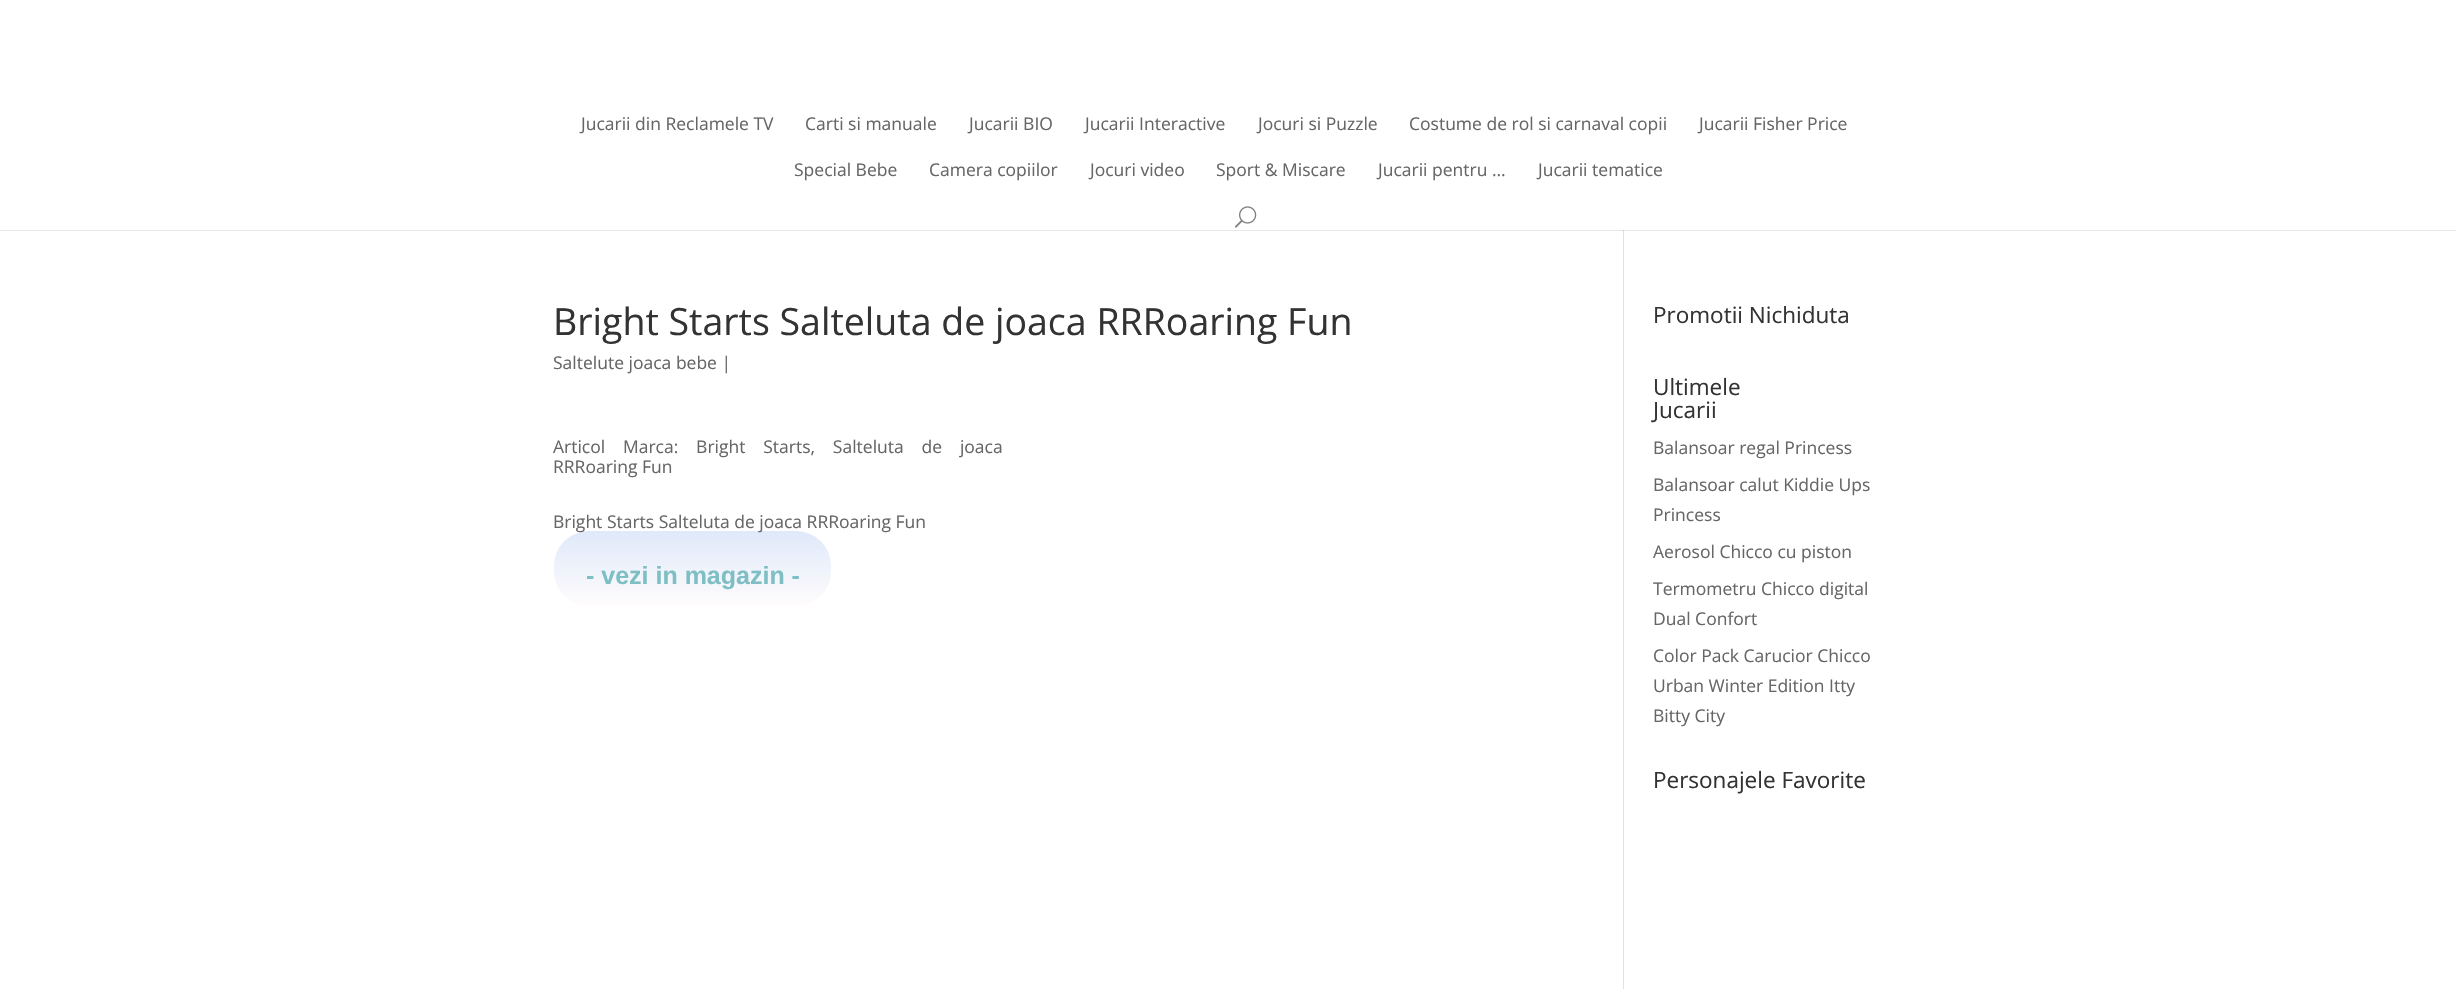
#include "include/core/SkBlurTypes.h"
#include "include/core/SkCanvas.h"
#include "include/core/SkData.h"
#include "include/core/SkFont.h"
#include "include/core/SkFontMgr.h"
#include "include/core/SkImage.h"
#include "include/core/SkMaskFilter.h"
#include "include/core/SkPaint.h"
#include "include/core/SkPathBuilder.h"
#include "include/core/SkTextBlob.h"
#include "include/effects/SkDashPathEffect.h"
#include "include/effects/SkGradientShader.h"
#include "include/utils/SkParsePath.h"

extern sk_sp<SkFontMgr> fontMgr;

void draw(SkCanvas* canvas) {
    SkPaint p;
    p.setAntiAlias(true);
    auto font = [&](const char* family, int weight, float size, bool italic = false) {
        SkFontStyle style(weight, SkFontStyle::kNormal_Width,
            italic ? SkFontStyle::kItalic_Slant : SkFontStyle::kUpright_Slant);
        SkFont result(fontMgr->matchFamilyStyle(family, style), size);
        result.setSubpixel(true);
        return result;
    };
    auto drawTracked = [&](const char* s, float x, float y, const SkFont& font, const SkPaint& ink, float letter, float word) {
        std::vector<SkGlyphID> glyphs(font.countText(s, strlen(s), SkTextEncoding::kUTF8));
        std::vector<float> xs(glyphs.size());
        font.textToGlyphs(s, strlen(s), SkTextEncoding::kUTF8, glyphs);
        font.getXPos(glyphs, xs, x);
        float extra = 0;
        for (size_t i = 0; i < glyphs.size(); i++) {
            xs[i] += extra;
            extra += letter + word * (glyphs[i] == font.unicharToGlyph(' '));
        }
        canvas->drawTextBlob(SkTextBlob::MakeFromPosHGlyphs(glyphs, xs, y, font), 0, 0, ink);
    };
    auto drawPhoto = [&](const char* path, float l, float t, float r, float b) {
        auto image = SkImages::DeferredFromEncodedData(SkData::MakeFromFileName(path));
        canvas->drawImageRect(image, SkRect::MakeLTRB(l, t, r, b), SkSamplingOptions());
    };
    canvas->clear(0xFFFFFFFF);
    p.setColor(0xFFE6E6E6);
    canvas->drawRect(SkRect::MakeLTRB(0, 230, 2456, 231), p);
    auto font1 = font("Open Sans", 400, 17.5f);
    p.setColor(0xFF666666);
    {
        const struct { const char* s; float x, y; } items[] = {
            {"Jucarii din Reclamele TV", 581, 130},
            {"Carti si manuale", 805, 130},
            {"Jucarii BIO", 969, 130},
            {"Jucarii Interactive", 1085, 130},
            {"Jocuri si Puzzle", 1258, 130},
            {"Costume de rol si carnaval copii", 1409, 130},
            {"Jucarii Fisher Price", 1699, 130},
            {"Special Bebe", 794, 176},
            {"Camera copiilor", 929, 176},
            {"Jocuri video", 1090, 176},
            {"Sport & Miscare", 1216, 176},
            {"Jucarii pentru …", 1378, 176},
            {"Jucarii tematice", 1538, 176},
        };
        for (auto [s, x, y] : items) {
            canvas->drawString(s, x, y, font1, p);
        }
    }
    drawPhoto("media/1.png", 1235, 206, 1257, 228);
    p.setColor(0xFFE2E2E2);
    canvas->drawRect(SkRect::MakeLTRB(1623, 230, 1624, 989), p);
    p.setColor(0xFFCBCBCB);
    canvas->drawRect(SkRect::MakeLTRB(1623, 230, 1624, 231), p);
    auto font2 = font("Open Sans", 400, 37.5f);
    p.setColor(0xFF333333);
    canvas->drawString("Bright Starts Salteluta de joaca RRRoaring Fun", 553, 335, font2, p);
    p.setColor(0xFF666666);
    canvas->drawString("Saltelute joaca bebe |", 553, 369, font1, p);
    drawTracked("Articol Marca: Bright Starts, Salteluta de joaca", 553, 453, font1, p, 0, 13.25f);
    canvas->drawString("RRRoaring Fun", 553, 473, font1, p);
    {
        const SkColor colors[] = {0xFFDFE9FA, 0xFFFFFCFC};
        const float stops[] = {0, 1};
        const SkPoint ends[] = {{693, 531}, {693, 606}};
        p.setShader(SkGradientShader::MakeLinear(ends, colors, stops, 2, SkTileMode::kClamp));
        p.setAlpha(255);
    }
    canvas->drawRoundRect(SkRect::MakeLTRB(554, 531, 831, 606), 35, 35, p);
    p.setShader(nullptr);
    p.setColor(0xFF666666);
    canvas->drawString("Bright Starts Salteluta de joaca RRRoaring Fun", 553, 528, font1, p);
    auto font3 = font("Liberation Sans", 700, 25);
    p.setColor(0xFF7EBEC5);
    canvas->drawString("- vezi in magazin -", 586, 584, font3, p);
    auto font4 = font("Open Sans", 400, 22.5f);
    p.setColor(0xFF333333);
    {
        const struct { const char* s; float x, y; } items[] = {
            {"Promotii Nichiduta", 1653, 323},
            {"Ultimele", 1653, 395},
            {"Jucarii", 1653, 418},
        };
        for (auto [s, x, y] : items) {
            canvas->drawString(s, x, y, font4, p);
        }
    }
    p.setColor(0xFF666666);
    {
        const struct { const char* s; float x, y; } items[] = {
            {"Balansoar regal Princess", 1653, 454},
            {"Balansoar calut Kiddie Ups", 1653, 491},
            {"Princess", 1653, 521},
            {"Aerosol Chicco cu piston", 1653, 558},
            {"Termometru Chicco digital", 1653, 595},
            {"Dual Confort", 1653, 625},
            {"Color Pack Carucior Chicco", 1653, 662},
            {"Urban Winter Edition Itty", 1653, 692},
            {"Bitty City", 1653, 722},
        };
        for (auto [s, x, y] : items) {
            canvas->drawString(s, x, y, font1, p);
        }
    }
    p.setColor(0xFF333333);
    canvas->drawString("Personajele Favorite", 1653, 788, font4, p);
}
